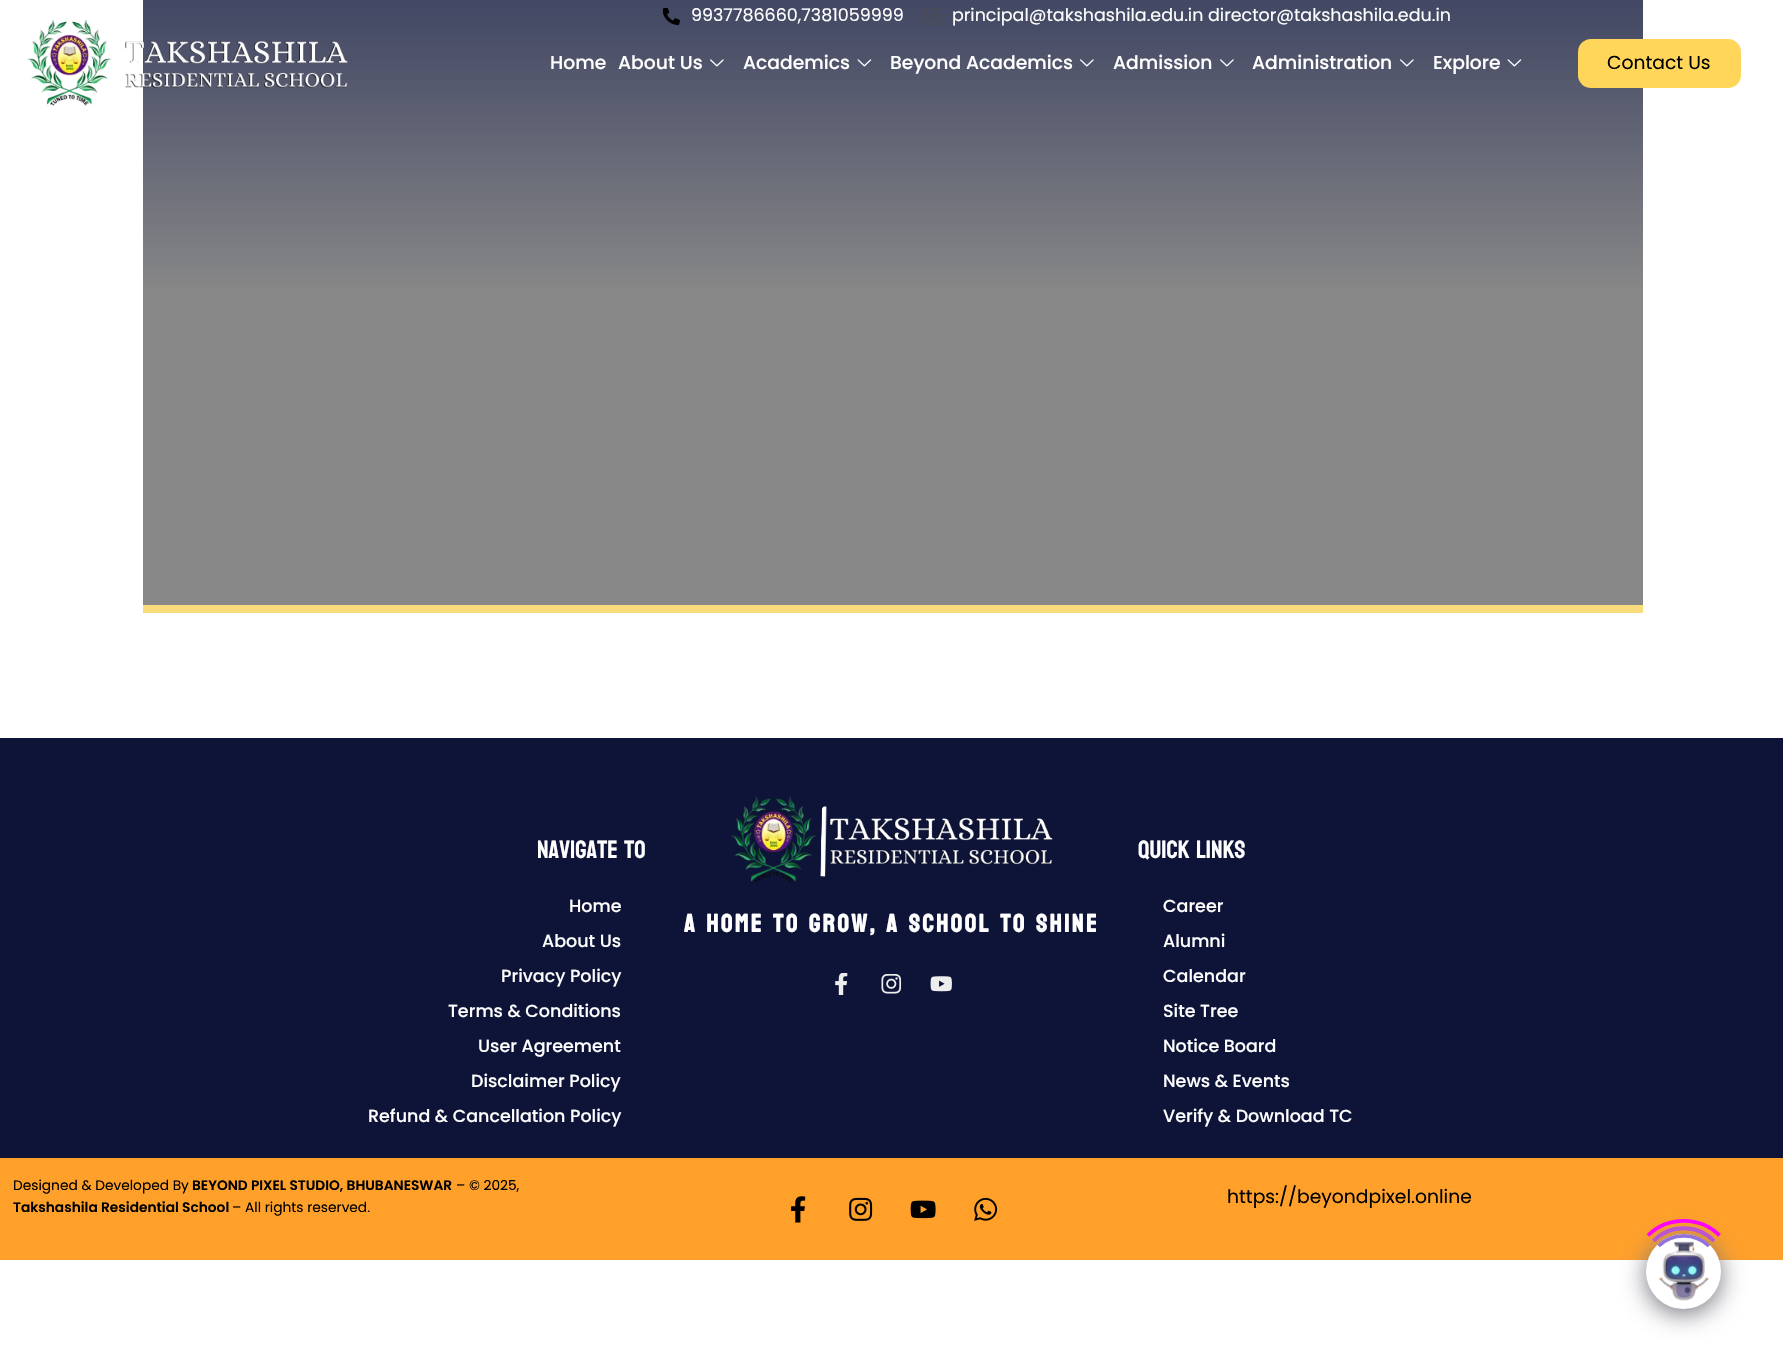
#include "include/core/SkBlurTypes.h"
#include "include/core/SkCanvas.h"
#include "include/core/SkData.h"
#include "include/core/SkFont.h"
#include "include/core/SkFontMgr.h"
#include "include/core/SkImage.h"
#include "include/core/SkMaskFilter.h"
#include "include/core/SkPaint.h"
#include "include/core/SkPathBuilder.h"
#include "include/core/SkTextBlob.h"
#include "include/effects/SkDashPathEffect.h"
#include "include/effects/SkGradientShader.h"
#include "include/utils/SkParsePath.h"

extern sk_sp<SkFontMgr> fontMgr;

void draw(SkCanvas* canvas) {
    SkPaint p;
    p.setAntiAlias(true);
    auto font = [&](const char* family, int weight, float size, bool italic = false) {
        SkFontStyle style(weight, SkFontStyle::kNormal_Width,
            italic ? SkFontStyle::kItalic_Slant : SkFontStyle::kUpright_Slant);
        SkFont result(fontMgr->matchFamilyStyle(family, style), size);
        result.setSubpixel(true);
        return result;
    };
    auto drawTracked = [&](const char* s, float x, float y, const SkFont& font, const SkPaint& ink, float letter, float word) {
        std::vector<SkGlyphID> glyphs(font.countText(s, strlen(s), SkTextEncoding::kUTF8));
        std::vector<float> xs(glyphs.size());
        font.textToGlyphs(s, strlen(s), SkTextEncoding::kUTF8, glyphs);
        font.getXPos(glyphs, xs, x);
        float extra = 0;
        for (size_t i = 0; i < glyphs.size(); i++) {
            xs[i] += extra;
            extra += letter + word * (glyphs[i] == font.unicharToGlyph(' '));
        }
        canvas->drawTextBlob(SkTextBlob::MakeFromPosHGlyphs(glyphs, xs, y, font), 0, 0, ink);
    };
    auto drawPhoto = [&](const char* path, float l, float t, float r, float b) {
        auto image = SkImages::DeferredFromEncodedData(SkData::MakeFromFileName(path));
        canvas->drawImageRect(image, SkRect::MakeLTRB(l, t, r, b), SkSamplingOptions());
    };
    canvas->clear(0xFFFFFFFF);
    p.setColor(0xFFF7DC79);
    canvas->drawRect(SkRect::MakeLTRB(143, 605, 1643, 613), p);
    {
        const SkColor colors[] = {0xFF434864, 0xFF888888};
        const float stops[] = {0.15f, 0.56f};
        const SkPoint ends[] = {{893, -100}, {893, 605}};
        p.setShader(SkGradientShader::MakeLinear(ends, colors, stops, 2, SkTileMode::kClamp));
        p.setAlpha(255);
    }
    canvas->drawRect(SkRect::MakeLTRB(143, 0, 1643, 605), p);
    drawPhoto("media/1.png", 663, 8, 680, 25);
    auto font1 = font("Poppins", 400, 17.5f);
    p.setShader(nullptr);
    p.setColor(0xFFFFFFFF);
    canvas->drawString("9937786660,7381059999", 691, 21, font1, p);
    drawPhoto("media/2.png", 923, 8, 942, 25);
    canvas->drawString("principal@takshashila.edu.in director@takshashila.edu.in", 952, 21, font1, p);
    drawPhoto("media/3.png", 27, 19, 348, 106);
    auto font2 = font("Poppins", 500, 18.75f);
    canvas->drawString("Home", 550, 69, font2, p);
    canvas->drawString("About Us", 618, 69, font2, p);
    drawPhoto("media/4.png", 710, 59, 724, 67);
    canvas->drawString("Academics", 743, 69, font2, p);
    drawPhoto("media/5.png", 857, 59, 872, 67);
    canvas->drawString("Beyond Academics", 890, 69, font2, p);
    drawPhoto("media/4.png", 1080, 59, 1094, 67);
    canvas->drawString("Admission", 1113, 69, font2, p);
    drawPhoto("media/4.png", 1220, 59, 1234, 67);
    canvas->drawString("Administration", 1252, 69, font2, p);
    drawPhoto("media/4.png", 1400, 59, 1414, 67);
    canvas->drawString("Explore", 1433, 69, font2, p);
    drawPhoto("media/5.png", 1507, 59, 1522, 67);
    p.setColor(0xFFFFD65A);
    canvas->drawRoundRect(SkRect::MakeLTRB(1578, 39, 1741, 88), 13, 13, p);
    auto font3 = font("Poppins", 400, 18.75f);
    p.setColor(0xFF000000);
    canvas->drawString("Contact Us", 1607, 69, font3, p);
    p.setColor(0xFF0E1438);
    canvas->drawRect(SkRect::MakeLTRB(0, 738, 1783, 1158), p);
    auto font4 = font("Bayon", 400, 25);
    p.setColor(0xFFFFFFFF);
    canvas->drawString("Navigate to", 537, 858, font4, p);
    auto font5 = font("Poppins", 500, 17.5f);
    {
        const struct { const char* s; float x, y; } items[] = {
            {"Home", 569, 912},
            {"About Us", 542, 947},
            {"Privacy Policy", 501, 982},
            {"Terms & Conditions", 448, 1017},
            {"User Agreement", 478, 1052},
            {"Disclaimer Policy", 471, 1087},
            {"Refund & Cancellation Policy", 368, 1122},
        };
        for (auto [s, x, y] : items) {
            canvas->drawString(s, x, y, font5, p);
        }
    }
    drawPhoto("media/6.png", 731, 796, 1053, 883);
    auto font6 = font("Bayon", 700, 25);
    drawTracked("A Home to Grow, A School to Shine", 684, 932, font6, p, 2.6f, 0);
    drawPhoto("media/7.png", 835, 973, 848, 995);
    drawPhoto("media/8.png", 881, 974, 902, 994);
    drawPhoto("media/9.png", 930, 976, 952, 992);
    canvas->drawString("Quick Links", 1138, 858, font4, p);
    {
        const struct { const char* s; float x, y; } items[] = {
            {"Career", 1163, 912},
            {"Alumni", 1163, 947},
            {"Calendar", 1163, 982},
            {"Site Tree", 1163, 1017},
            {"Notice Board", 1163, 1052},
            {"News & Events", 1163, 1087},
            {"Verify & Download TC", 1163, 1122},
        };
        for (auto [s, x, y] : items) {
            canvas->drawString(s, x, y, font5, p);
        }
    }
    p.setColor(0xFFFFA02A);
    canvas->drawRect(SkRect::MakeLTRB(0, 1158, 1783, 1260), p);
    auto font7 = font("Poppins", 400, 13.75f);
    p.setColor(0xFF000000);
    canvas->drawString("Designed & Developed By", 13, 1190, font7, p);
    auto font8 = font("Poppins", 600, 13.75f);
    canvas->drawString("BEYOND PIXEL STUDIO, BHUBANESWAR", 192, 1190, font8, p);
    canvas->drawString("– © 2025,", 456, 1190, font7, p);
    canvas->drawString("Takshashila Residential School", 13, 1212, font8, p);
    canvas->drawString("– All rights reserved.", 232, 1212, font7, p);
    drawPhoto("media/10.png", 791, 1196, 806, 1223);
    drawPhoto("media/11.png", 849, 1197, 873, 1221);
    drawPhoto("media/12.png", 910, 1200, 936, 1219);
    drawPhoto("media/13.png", 974, 1197, 998, 1221);
    canvas->drawString("https://beyondpixel.online", 1227, 1203, font3, p);
    p.setColor(0xFF767580);
    p.setMaskFilter(SkMaskFilter::MakeBlur(kNormal_SkBlurStyle, 12.5f));
    canvas->drawRoundRect(SkRect::MakeLTRB(1646, 1239, 1721, 1314), 37.5f, 37.5f, p);
    p.setMaskFilter(nullptr);
    p.setColor(0xFFFFFFFF);
    canvas->drawCircle(1683.5f, 1271.5f, 37.5f, p);
    drawPhoto("media/14.png", 1658, 1241, 1709, 1301);
    p.setStyle(SkPaint::kStroke_Style);
    p.setStrokeWidth(3.8f);
    p.setColor(0xFC9370DB);
    canvas->drawPath(SkPathBuilder().moveTo(1658.5f, 1246).cubicTo(1672.5f, 1232.5f, 1695, 1232.5f, 1709, 1246).detach(), p);
    p.setColor(0xFCBA55D3);
    canvas->drawPath(SkPathBuilder().moveTo(1653.5f, 1241).cubicTo(1670, 1224, 1697.5f, 1224, 1714, 1241).detach(), p);
    p.setColor(0xFCFF00FF);
    canvas->drawPath(SkPathBuilder().moveTo(1648, 1235.5f).cubicTo(1667.5f, 1216, 1700, 1216, 1719.5f, 1235.5f).detach(), p);
}
